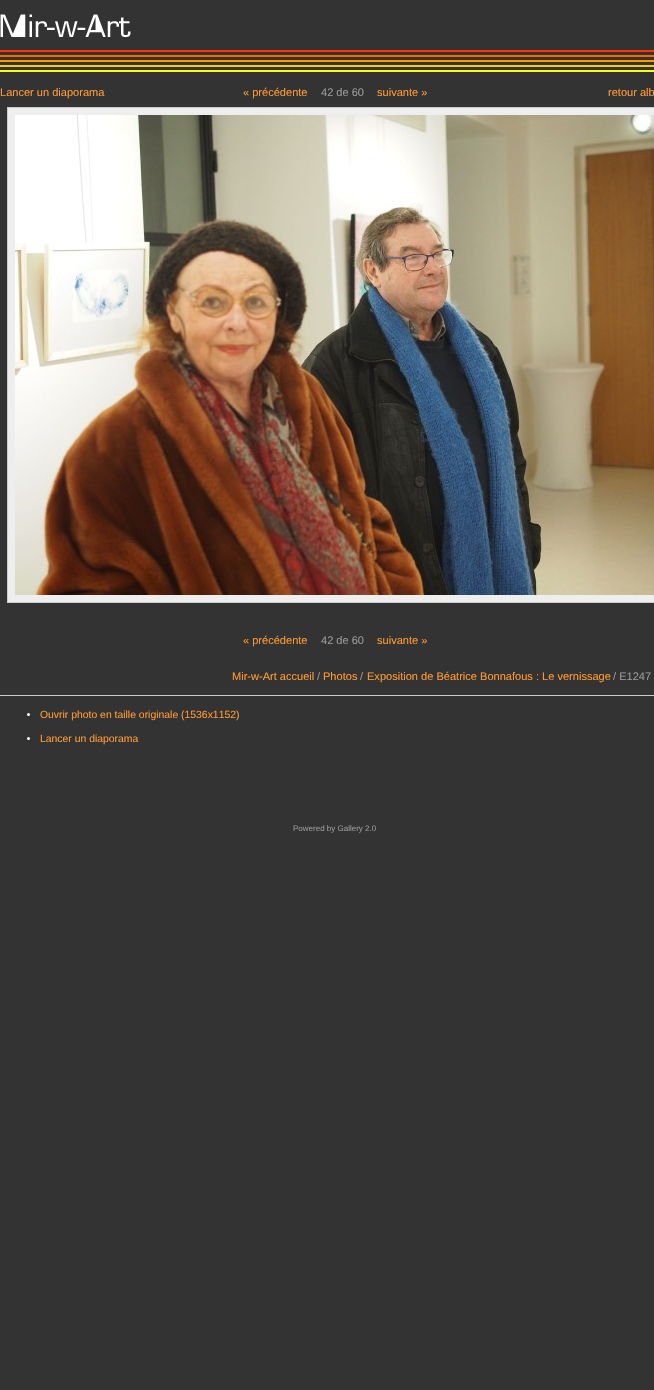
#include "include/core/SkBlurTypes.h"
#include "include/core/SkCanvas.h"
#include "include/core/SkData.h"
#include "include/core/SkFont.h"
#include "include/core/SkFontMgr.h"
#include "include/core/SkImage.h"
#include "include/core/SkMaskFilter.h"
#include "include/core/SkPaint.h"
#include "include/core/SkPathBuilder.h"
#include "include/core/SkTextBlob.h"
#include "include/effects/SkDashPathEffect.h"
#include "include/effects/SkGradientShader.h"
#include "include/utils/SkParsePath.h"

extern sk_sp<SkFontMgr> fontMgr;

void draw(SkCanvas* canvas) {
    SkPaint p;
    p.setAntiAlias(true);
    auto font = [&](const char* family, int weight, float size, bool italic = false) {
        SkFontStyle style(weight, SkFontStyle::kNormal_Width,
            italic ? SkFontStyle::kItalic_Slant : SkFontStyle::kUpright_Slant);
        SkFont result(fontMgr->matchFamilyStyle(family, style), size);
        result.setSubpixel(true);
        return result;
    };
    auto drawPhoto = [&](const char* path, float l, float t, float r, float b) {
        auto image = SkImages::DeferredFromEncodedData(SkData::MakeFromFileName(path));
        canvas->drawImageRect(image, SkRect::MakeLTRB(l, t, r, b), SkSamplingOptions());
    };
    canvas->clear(0xFF333333);
    drawPhoto("media/1.png", 0, 14, 131, 37);
    drawPhoto("media/2.png", 0, 50, 654, 72);
    auto font1 = font("Liberation Sans", 400, 11.05f);
    p.setColor(0xFFFF9933);
    canvas->drawString("Lancer un diaporama", 0, 96, font1, p);
    canvas->drawString("« précédente", 243, 96, font1, p);
    p.setColor(0xFF999999);
    canvas->drawString("42 de 60", 321, 96, font1, p);
    p.setColor(0xFFFF9933);
    canvas->drawString("suivante »", 377, 96, font1, p);
    canvas->drawString("retour alb", 608, 96, font1, p);
    p.setColor(0xFFEEEEEE);
    canvas->drawRect(SkRect::MakeLTRB(7.5f, 107.5f, 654.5f, 602.5f), p);
    p.setStyle(SkPaint::kStroke_Style);
    p.setStrokeWidth(1);
    p.setColor(0xFFCCCCCC);
    canvas->drawRect(SkRect::MakeLTRB(7.5f, 107.5f, 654.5f, 602.5f), p);
    drawPhoto("media/3.png", 15, 115, 654, 595);
    p.setStyle(SkPaint::kFill_Style);
    p.setColor(0xFFFF9933);
    canvas->drawString("« précédente", 243, 644, font1, p);
    p.setColor(0xFF999999);
    canvas->drawString("42 de 60", 321, 644, font1, p);
    p.setColor(0xFFFF9933);
    canvas->drawString("suivante »", 377, 644, font1, p);
    canvas->drawString("Mir-w-Art accueil", 232, 680, font1, p);
    p.setColor(0xFF999999);
    canvas->drawString("/", 317, 680, font1, p);
    p.setColor(0xFFFF9933);
    canvas->drawString("Photos", 323, 680, font1, p);
    p.setColor(0xFF999999);
    canvas->drawString("/", 360, 680, font1, p);
    p.setColor(0xFFFF9933);
    canvas->drawString("Exposition de Béatrice Bonnafous : Le vernissage", 367, 680, font1, p);
    p.setColor(0xFF999999);
    canvas->drawString("/ E1247", 613, 680, font1, p);
    p.setColor(0xFFCCCCCC);
    canvas->drawRect(SkRect::MakeLTRB(0, 695, 654, 696), p);
    p.setColor(0xFFFFFFFF);
    canvas->drawCircle(28.5f, 714.5f, 1.5f, p);
    auto font2 = font("Liberation Sans", 400, 10.4f);
    p.setColor(0xFFFF9933);
    canvas->drawString("Ouvrir photo en taille originale (1536x1152)", 40, 718, font2, p);
    p.setColor(0xFFFFFFFF);
    canvas->drawCircle(28.5f, 738.5f, 1.5f, p);
    p.setColor(0xFFFF9933);
    canvas->drawString("Lancer un diaporama", 40, 742, font2, p);
    auto font3 = font("Liberation Sans", 400, 8);
    p.setColor(0xFF999999);
    canvas->drawString("Powered by Gallery 2.0", 293, 831, font3, p);
}
